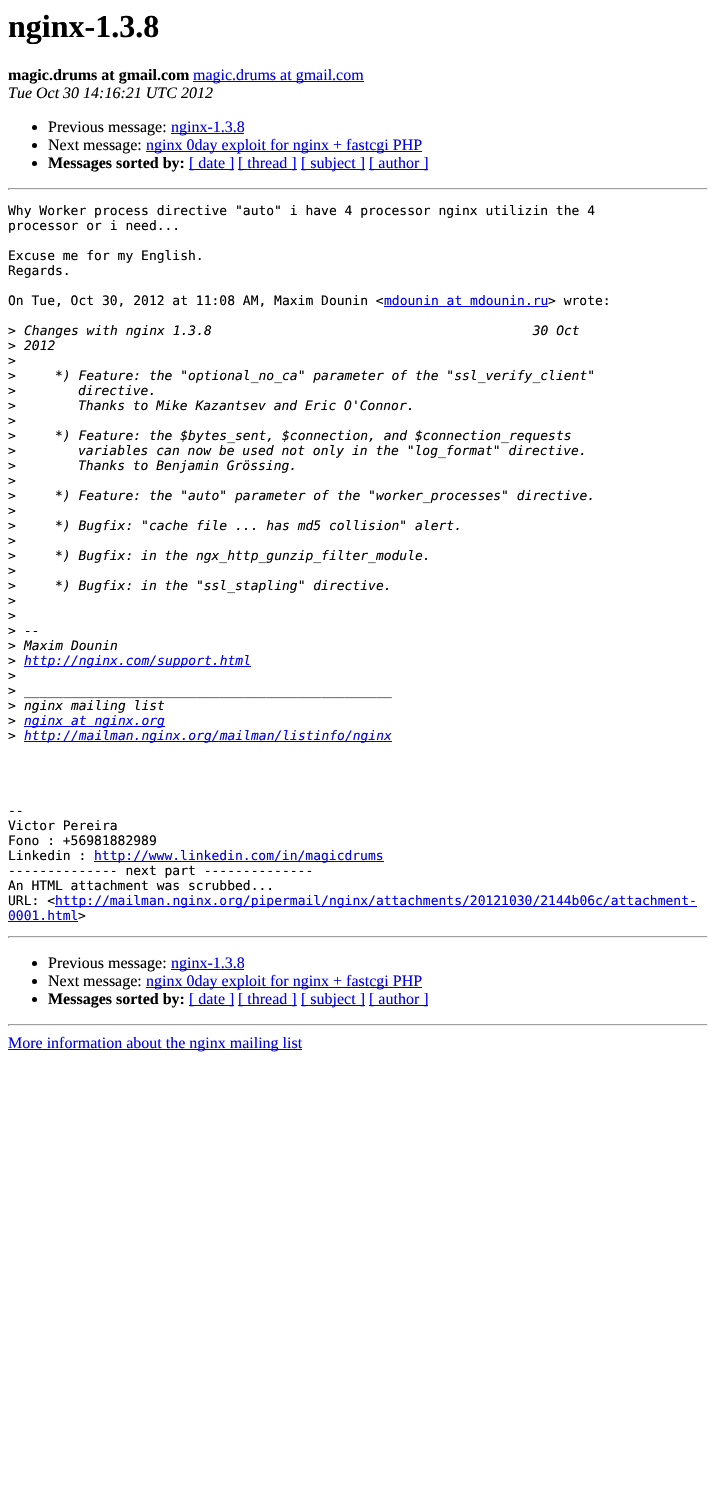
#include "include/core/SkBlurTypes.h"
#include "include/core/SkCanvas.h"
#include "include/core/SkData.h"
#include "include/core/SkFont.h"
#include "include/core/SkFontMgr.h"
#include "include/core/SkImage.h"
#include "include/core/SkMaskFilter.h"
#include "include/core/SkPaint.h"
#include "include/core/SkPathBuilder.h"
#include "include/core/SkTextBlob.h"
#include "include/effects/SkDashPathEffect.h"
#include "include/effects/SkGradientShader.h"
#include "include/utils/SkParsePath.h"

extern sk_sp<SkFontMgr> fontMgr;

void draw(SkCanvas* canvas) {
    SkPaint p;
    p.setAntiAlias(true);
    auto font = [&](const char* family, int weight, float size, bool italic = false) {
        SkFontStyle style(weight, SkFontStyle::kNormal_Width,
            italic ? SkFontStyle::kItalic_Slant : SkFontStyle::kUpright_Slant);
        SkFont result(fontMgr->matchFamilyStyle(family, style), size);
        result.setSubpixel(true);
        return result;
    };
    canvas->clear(0xFFFFFFFF);
    auto font1 = font("Liberation Serif", 700, 32);
    p.setColor(0xFF000000);
    canvas->drawString("nginx-1.3.8", 8, 37, font1, p);
    auto font2 = font("Liberation Serif", 700, 16);
    canvas->drawString("magic.drums at gmail.com", 8, 80, font2, p);
    p.setColor(0xFF0000EE);
    canvas->drawRect(SkRect::MakeLTRB(193, 81, 364, 82), p);
    auto font3 = font("Liberation Serif", 400, 16);
    canvas->drawString("magic.drums at gmail.com", 193, 80, font3, p);
    auto font4 = font("Liberation Serif", 400, 16, true);
    p.setColor(0xFF000000);
    canvas->drawString("Tue Oct 30 14:16:21 UTC 2012", 8, 98, font4, p);
    canvas->drawCircle(34.5f, 127.5f, 2.5f, p);
    canvas->drawString("Previous message:", 48, 132, font3, p);
    p.setColor(0xFF0000EE);
    canvas->drawRect(SkRect::MakeLTRB(171, 133, 244, 134), p);
    canvas->drawString("nginx-1.3.8", 171, 132, font3, p);
    p.setColor(0xFF000000);
    canvas->drawCircle(34.5f, 145.5f, 2.5f, p);
    canvas->drawString("Next message:", 48, 150, font3, p);
    p.setColor(0xFF0000EE);
    canvas->drawRect(SkRect::MakeLTRB(146, 151, 422, 152), p);
    canvas->drawString("nginx 0day exploit for nginx + fastcgi PHP", 146, 150, font3, p);
    p.setColor(0xFF000000);
    canvas->drawCircle(34.5f, 163.5f, 2.5f, p);
    canvas->drawString("Messages sorted by:", 48, 168, font2, p);
    p.setColor(0xFF0000EE);
    canvas->drawRect(SkRect::MakeLTRB(189, 169, 234, 170), p);
    canvas->drawString("[ date ]", 189, 168, font3, p);
    canvas->drawRect(SkRect::MakeLTRB(238, 169, 297, 170), p);
    canvas->drawString("[ thread ]", 238, 168, font3, p);
    canvas->drawRect(SkRect::MakeLTRB(301, 169, 365, 170), p);
    canvas->drawString("[ subject ]", 301, 168, font3, p);
    canvas->drawRect(SkRect::MakeLTRB(369, 169, 428, 170), p);
    canvas->drawString("[ author ]", 369, 168, font3, p);
    {
        const struct { float l, t, r, b; SkColor color; } items[] = {
            {8, 188, 708, 189, 0xFF9F9F9F},
            {707, 188, 708, 190, 0xFFEEEEEE},
            {8, 189, 708, 190, 0xFFEEEEEE},
            {8, 188, 9, 190, 0xFF9F9F9F},
        };
        for (auto [l, t, r, b, color] : items) {
            p.setColor(color);
            canvas->drawRect(SkRect::MakeLTRB(l, t, r, b), p);
        }
    }
    auto font5 = font("DejaVu Sans Mono", 400, 13);
    p.setColor(0xFF000000);
    {
        const struct { const char* s; float x, y; } items[] = {
            {"Why Worker process directive \"auto\" i have 4 processor nginx utilizin the 4", 8, 215},
            {"processor or i need...", 8, 230},
            {"Excuse me for my English.", 8, 260},
            {"Regards.", 8, 275},
            {"On Tue, Oct 30, 2012 at 11:08 AM, Maxim Dounin <", 8, 305},
        };
        for (auto [s, x, y] : items) {
            canvas->drawString(s, x, y, font5, p);
        }
    }
    p.setColor(0xFF0000EE);
    canvas->drawString("mdounin at mdounin.ru", 384, 305, font5, p);
    canvas->drawRect(SkRect::MakeLTRB(384, 306, 548, 307), p);
    p.setColor(0xFF000000);
    canvas->drawString("> wrote:", 548, 305, font5, p);
    canvas->drawString(">", 8, 335, font5, p);
    auto font6 = font("DejaVu Sans Mono", 400, 13, true);
    canvas->drawString("Changes with nginx 1.3.8                                         30 Oct", 24, 335, font6, p);
    canvas->drawString(">", 8, 350, font5, p);
    canvas->drawString("2012", 24, 350, font6, p);
    canvas->drawString(">", 8, 365, font5, p);
    canvas->drawString(">", 8, 380, font5, p);
    canvas->drawString("*) Feature: the \"optional_no_ca\" parameter of the \"ssl_verify_client\"", 55, 380, font6, p);
    canvas->drawString(">", 8, 395, font5, p);
    canvas->drawString("directive.", 78, 395, font6, p);
    canvas->drawString(">", 8, 410, font5, p);
    canvas->drawString("Thanks to Mike Kazantsev and Eric O'Connor.", 78, 410, font6, p);
    canvas->drawString(">", 8, 425, font5, p);
    canvas->drawString(">", 8, 440, font5, p);
    canvas->drawString("*) Feature: the $bytes_sent, $connection, and $connection_requests", 55, 440, font6, p);
    canvas->drawString(">", 8, 455, font5, p);
    canvas->drawString("variables can now be used not only in the \"log_format\" directive.", 78, 455, font6, p);
    canvas->drawString(">", 8, 470, font5, p);
    canvas->drawString("Thanks to Benjamin Grössing.", 78, 470, font6, p);
    canvas->drawString(">", 8, 485, font5, p);
    canvas->drawString(">", 8, 500, font5, p);
    canvas->drawString("*) Feature: the \"auto\" parameter of the \"worker_processes\" directive.", 55, 500, font6, p);
    canvas->drawString(">", 8, 515, font5, p);
    canvas->drawString(">", 8, 530, font5, p);
    canvas->drawString("*) Bugfix: \"cache file ... has md5 collision\" alert.", 55, 530, font6, p);
    canvas->drawString(">", 8, 545, font5, p);
    canvas->drawString(">", 8, 560, font5, p);
    canvas->drawString("*) Bugfix: in the ngx_http_gunzip_filter_module.", 55, 560, font6, p);
    canvas->drawString(">", 8, 575, font5, p);
    canvas->drawString(">", 8, 590, font5, p);
    canvas->drawString("*) Bugfix: in the \"ssl_stapling\" directive.", 55, 590, font6, p);
    {
        const struct { const char* s; float x, y; } items[] = {
            {">", 8, 605},
            {">", 8, 620},
            {">", 8, 635},
        };
        for (auto [s, x, y] : items) {
            canvas->drawString(s, x, y, font5, p);
        }
    }
    canvas->drawString("--", 24, 635, font6, p);
    canvas->drawString(">", 8, 650, font5, p);
    canvas->drawString("Maxim Dounin", 24, 650, font6, p);
    canvas->drawString(">", 8, 665, font5, p);
    p.setColor(0xFF0000EE);
    canvas->drawRect(SkRect::MakeLTRB(24, 666, 251, 667), p);
    canvas->drawString("http://nginx.com/support.html", 24, 665, font6, p);
    p.setColor(0xFF000000);
    canvas->drawString(">", 8, 680, font5, p);
    canvas->drawString(">", 8, 695, font5, p);
    canvas->drawString("_______________________________________________", 24, 695, font6, p);
    canvas->drawString(">", 8, 710, font5, p);
    canvas->drawString("nginx mailing list", 24, 710, font6, p);
    canvas->drawString(">", 8, 725, font5, p);
    p.setColor(0xFF0000EE);
    canvas->drawRect(SkRect::MakeLTRB(24, 726, 165, 727), p);
    canvas->drawString("nginx at nginx.org", 24, 725, font6, p);
    p.setColor(0xFF000000);
    canvas->drawString(">", 8, 740, font5, p);
    p.setColor(0xFF0000EE);
    canvas->drawRect(SkRect::MakeLTRB(24, 741, 392, 742), p);
    canvas->drawString("http://mailman.nginx.org/mailman/listinfo/nginx", 24, 740, font6, p);
    p.setColor(0xFF000000);
    {
        const struct { const char* s; float x, y; } items[] = {
            {"--", 8, 815},
            {"Victor Pereira", 8, 830},
            {"Fono : +56981882989", 8, 845},
            {"Linkedin :", 8, 860},
        };
        for (auto [s, x, y] : items) {
            canvas->drawString(s, x, y, font5, p);
        }
    }
    p.setColor(0xFF0000EE);
    canvas->drawRect(SkRect::MakeLTRB(94, 861, 384, 862), p);
    canvas->drawString("http://www.linkedin.com/in/magicdrums", 94, 860, font5, p);
    p.setColor(0xFF000000);
    {
        const struct { const char* s; float x, y; } items[] = {
            {"-------------- next part --------------", 8, 875},
            {"An HTML attachment was scrubbed...", 8, 890},
            {"URL: <", 8, 905},
        };
        for (auto [s, x, y] : items) {
            canvas->drawString(s, x, y, font5, p);
        }
    }
    p.setColor(0xFF0000EE);
    canvas->drawRect(SkRect::MakeLTRB(55, 906, 697, 907), p);
    canvas->drawString("http://mailman.nginx.org/pipermail/nginx/attachments/20121030/2144b06c/attachment-", 55, 905, font5, p);
    canvas->drawString("0001.html", 8, 920, font5, p);
    canvas->drawRect(SkRect::MakeLTRB(8, 921, 78, 922), p);
    p.setColor(0xFF000000);
    canvas->drawString(">", 78, 920, font5, p);
    {
        const struct { float l, t, r, b; SkColor color; } items[] = {
            {8, 936, 708, 937, 0xFF9F9F9F},
            {707, 936, 708, 938, 0xFFEEEEEE},
            {8, 937, 708, 938, 0xFFEEEEEE},
            {8, 936, 9, 938, 0xFF9F9F9F},
        };
        for (auto [l, t, r, b, color] : items) {
            p.setColor(color);
            canvas->drawRect(SkRect::MakeLTRB(l, t, r, b), p);
        }
    }
    p.setColor(0xFF000000);
    canvas->drawCircle(34.5f, 963.5f, 2.5f, p);
    canvas->drawString("Previous message:", 48, 968, font3, p);
    p.setColor(0xFF0000EE);
    canvas->drawRect(SkRect::MakeLTRB(171, 969, 244, 970), p);
    canvas->drawString("nginx-1.3.8", 171, 968, font3, p);
    p.setColor(0xFF000000);
    canvas->drawCircle(34.5f, 981.5f, 2.5f, p);
    canvas->drawString("Next message:", 48, 986, font3, p);
    p.setColor(0xFF0000EE);
    canvas->drawRect(SkRect::MakeLTRB(146, 987, 422, 988), p);
    canvas->drawString("nginx 0day exploit for nginx + fastcgi PHP", 146, 986, font3, p);
    p.setColor(0xFF000000);
    canvas->drawCircle(34.5f, 999.5f, 2.5f, p);
    canvas->drawString("Messages sorted by:", 48, 1004, font2, p);
    p.setColor(0xFF0000EE);
    canvas->drawRect(SkRect::MakeLTRB(189, 1005, 234, 1006), p);
    canvas->drawString("[ date ]", 189, 1004, font3, p);
    canvas->drawRect(SkRect::MakeLTRB(238, 1005, 297, 1006), p);
    canvas->drawString("[ thread ]", 238, 1004, font3, p);
    canvas->drawRect(SkRect::MakeLTRB(301, 1005, 365, 1006), p);
    canvas->drawString("[ subject ]", 301, 1004, font3, p);
    canvas->drawRect(SkRect::MakeLTRB(369, 1005, 428, 1006), p);
    canvas->drawString("[ author ]", 369, 1004, font3, p);
    {
        const struct { float l, t, r, b; SkColor color; } items[] = {
            {8, 1024, 708, 1025, 0xFF9F9F9F},
            {707, 1024, 708, 1026, 0xFFEEEEEE},
            {8, 1025, 708, 1026, 0xFFEEEEEE},
            {8, 1024, 9, 1026, 0xFF9F9F9F},
            {8, 1049, 302, 1050, 0xFF0000EE},
        };
        for (auto [l, t, r, b, color] : items) {
            p.setColor(color);
            canvas->drawRect(SkRect::MakeLTRB(l, t, r, b), p);
        }
    }
    canvas->drawString("More information about the nginx mailing list", 8, 1048, font3, p);
}
